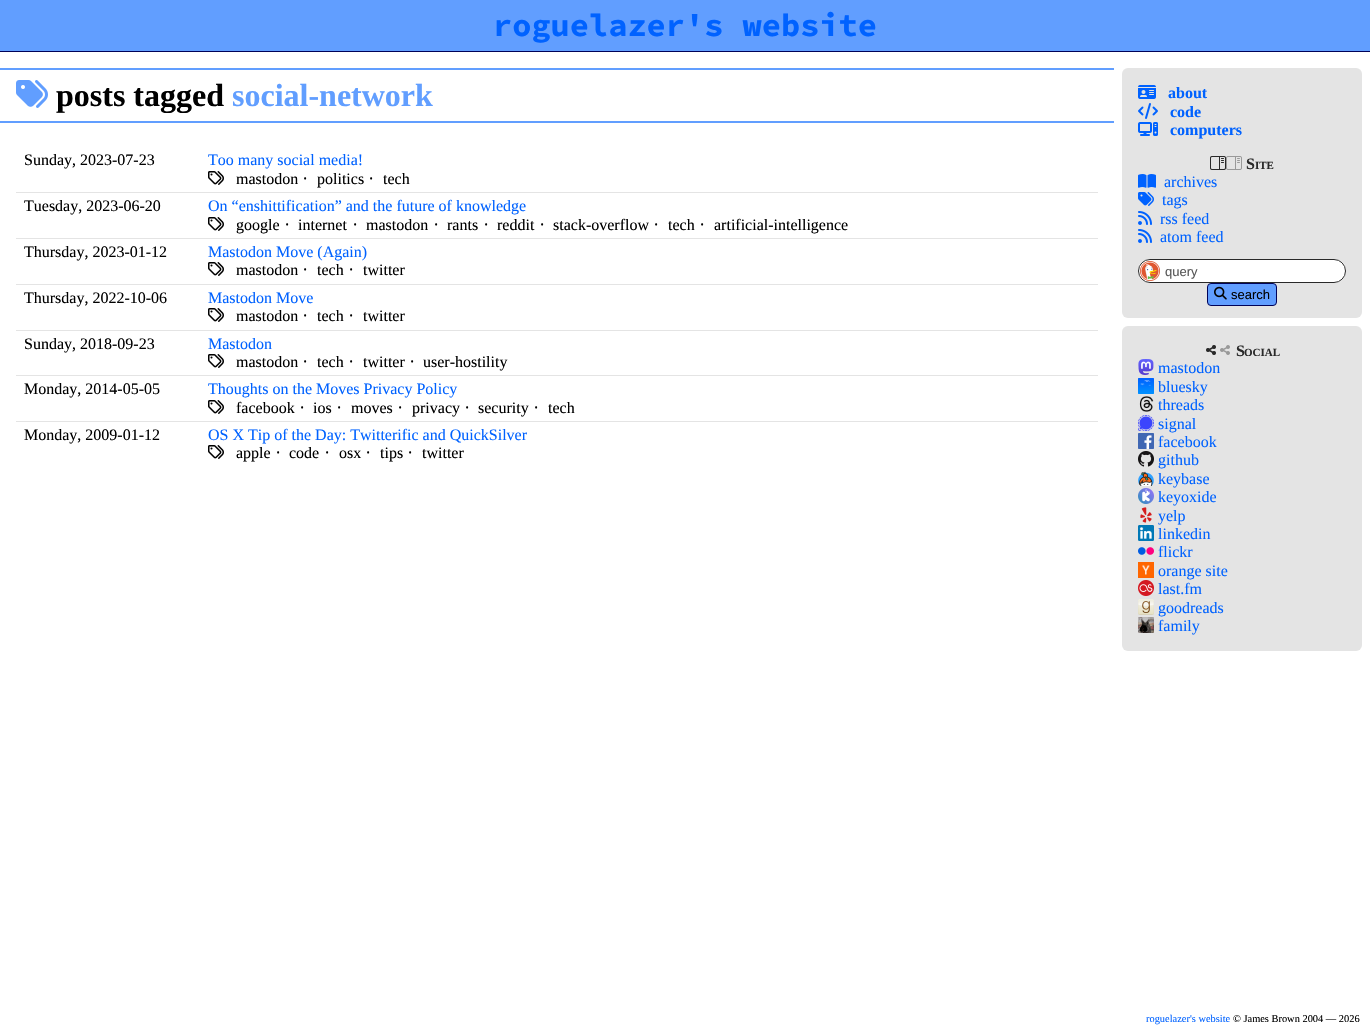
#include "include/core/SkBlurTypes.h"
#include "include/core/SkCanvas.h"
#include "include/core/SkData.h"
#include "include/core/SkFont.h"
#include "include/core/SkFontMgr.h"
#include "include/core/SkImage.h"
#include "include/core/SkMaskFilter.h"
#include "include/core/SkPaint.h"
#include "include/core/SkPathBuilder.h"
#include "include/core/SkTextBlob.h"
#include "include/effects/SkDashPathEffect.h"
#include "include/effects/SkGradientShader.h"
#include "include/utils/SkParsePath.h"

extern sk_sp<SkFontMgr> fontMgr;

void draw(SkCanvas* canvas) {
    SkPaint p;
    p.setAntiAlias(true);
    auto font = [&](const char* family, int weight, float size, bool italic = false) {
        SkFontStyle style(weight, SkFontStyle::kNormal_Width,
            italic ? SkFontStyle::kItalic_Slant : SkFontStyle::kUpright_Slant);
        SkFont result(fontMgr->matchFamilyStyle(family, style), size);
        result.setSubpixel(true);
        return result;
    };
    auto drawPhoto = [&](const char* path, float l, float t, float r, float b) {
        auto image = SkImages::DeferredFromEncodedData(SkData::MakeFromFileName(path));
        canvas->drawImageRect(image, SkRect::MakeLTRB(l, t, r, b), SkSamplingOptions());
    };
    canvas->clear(0xFFFFFFFF);
    p.setColor(0xFF619EFF);
    canvas->drawRect(SkRect::MakeLTRB(0, 0, 1370, 51), p);
    p.setColor(0xFF000258);
    canvas->drawRect(SkRect::MakeLTRB(0, 51, 1370, 52), p);
    auto font1 = font("Source Code Pro", 700, 32);
    p.setColor(0xFF0062FF);
    canvas->drawString("roguelazer's website", 493, 36, font1, p);
    p.setColor(0xFF619EFF);
    canvas->drawRect(SkRect::MakeLTRB(0, 68, 1114, 70), p);
    canvas->drawRect(SkRect::MakeLTRB(0, 121, 1114, 123), p);
    drawPhoto("media/1.png", 16, 80, 48, 108);
    auto font2 = font("Liberation Serif", 700, 32);
    p.setColor(0xFF000000);
    canvas->drawString("posts tagged", 56, 106, font2, p);
    p.setColor(0xFF619EFF);
    canvas->drawString("social-network", 232, 106, font2, p);
    p.setColor(0xFFE4E4E4);
    canvas->drawRect(SkRect::MakeLTRB(16, 192, 1098, 193), p);
    auto font3 = font("Liberation Serif", 400, 16);
    p.setColor(0xFF000000);
    canvas->drawString("Sunday, 2023-07-23", 24, 165, font3, p);
    p.setColor(0xFF0062FF);
    canvas->drawString("Too many social media!", 208, 165, font3, p);
    drawPhoto("media/2.png", 208, 171, 224, 185);
    p.setColor(0xFF000000);
    canvas->drawString("mastodon", 236, 184, font3, p);
    auto font4 = font("Noto Sans", 400, 16);
    canvas->drawString("⸱", 303, 184, font4, p);
    canvas->drawString("politics", 317, 184, font3, p);
    canvas->drawString("⸱", 369, 184, font4, p);
    canvas->drawString("tech", 383, 184, font3, p);
    p.setColor(0xFFE4E4E4);
    canvas->drawRect(SkRect::MakeLTRB(16, 238, 1098, 239), p);
    p.setColor(0xFF000000);
    canvas->drawString("Tuesday, 2023-06-20", 24, 211, font3, p);
    p.setColor(0xFF0062FF);
    canvas->drawString("On “enshittification” and the future of knowledge", 208, 211, font3, p);
    drawPhoto("media/2.png", 208, 217, 224, 231);
    p.setColor(0xFF000000);
    canvas->drawString("google", 236, 230, font3, p);
    canvas->drawString("⸱", 285, 230, font4, p);
    canvas->drawString("internet", 298, 230, font3, p);
    canvas->drawString("⸱", 353, 230, font4, p);
    canvas->drawString("mastodon", 366, 230, font3, p);
    canvas->drawString("⸱", 434, 230, font4, p);
    canvas->drawString("rants", 447, 230, font3, p);
    canvas->drawString("⸱", 484, 230, font4, p);
    canvas->drawString("reddit", 497, 230, font3, p);
    canvas->drawString("⸱", 540, 230, font4, p);
    canvas->drawString("stack-overflow", 553, 230, font3, p);
    canvas->drawString("⸱", 654, 230, font4, p);
    canvas->drawString("tech", 668, 230, font3, p);
    canvas->drawString("⸱", 700, 230, font4, p);
    canvas->drawString("artificial-intelligence", 714, 230, font3, p);
    p.setColor(0xFFE4E4E4);
    canvas->drawRect(SkRect::MakeLTRB(16, 284, 1098, 285), p);
    p.setColor(0xFF000000);
    canvas->drawString("Thursday, 2023-01-12", 24, 257, font3, p);
    p.setColor(0xFF0062FF);
    canvas->drawString("Mastodon Move (Again)", 208, 257, font3, p);
    drawPhoto("media/2.png", 208, 262, 224, 276);
    p.setColor(0xFF000000);
    canvas->drawString("mastodon", 236, 275, font3, p);
    canvas->drawString("⸱", 303, 275, font4, p);
    canvas->drawString("tech", 317, 275, font3, p);
    canvas->drawString("⸱", 349, 275, font4, p);
    canvas->drawString("twitter", 363, 275, font3, p);
    p.setColor(0xFFE4E4E4);
    canvas->drawRect(SkRect::MakeLTRB(16, 330, 1098, 331), p);
    p.setColor(0xFF000000);
    canvas->drawString("Thursday, 2022-10-06", 24, 303, font3, p);
    p.setColor(0xFF0062FF);
    canvas->drawString("Mastodon Move", 208, 303, font3, p);
    drawPhoto("media/2.png", 208, 308, 224, 322);
    p.setColor(0xFF000000);
    canvas->drawString("mastodon", 236, 321, font3, p);
    canvas->drawString("⸱", 303, 321, font4, p);
    canvas->drawString("tech", 317, 321, font3, p);
    canvas->drawString("⸱", 349, 321, font4, p);
    canvas->drawString("twitter", 363, 321, font3, p);
    p.setColor(0xFFE4E4E4);
    canvas->drawRect(SkRect::MakeLTRB(16, 375, 1098, 376), p);
    p.setColor(0xFF000000);
    canvas->drawString("Sunday, 2018-09-23", 24, 349, font3, p);
    p.setColor(0xFF0062FF);
    canvas->drawString("Mastodon", 208, 349, font3, p);
    drawPhoto("media/2.png", 208, 354, 224, 368);
    p.setColor(0xFF000000);
    canvas->drawString("mastodon", 236, 367, font3, p);
    canvas->drawString("⸱", 303, 367, font4, p);
    canvas->drawString("tech", 317, 367, font3, p);
    canvas->drawString("⸱", 349, 367, font4, p);
    canvas->drawString("twitter", 363, 367, font3, p);
    canvas->drawString("⸱", 410, 367, font4, p);
    canvas->drawString("user-hostility", 423, 367, font3, p);
    p.setColor(0xFFE4E4E4);
    canvas->drawRect(SkRect::MakeLTRB(16, 421, 1098, 422), p);
    p.setColor(0xFF000000);
    canvas->drawString("Monday, 2014-05-05", 24, 394, font3, p);
    p.setColor(0xFF0062FF);
    canvas->drawString("Thoughts on the Moves Privacy Policy", 208, 394, font3, p);
    drawPhoto("media/2.png", 208, 400, 224, 414);
    p.setColor(0xFF000000);
    canvas->drawString("facebook", 236, 413, font3, p);
    canvas->drawString("⸱", 300, 413, font4, p);
    canvas->drawString("ios", 313, 413, font3, p);
    canvas->drawString("⸱", 337, 413, font4, p);
    canvas->drawString("moves", 351, 413, font3, p);
    canvas->drawString("⸱", 398, 413, font4, p);
    canvas->drawString("privacy", 412, 413, font3, p);
    canvas->drawString("⸱", 465, 413, font4, p);
    canvas->drawString("security", 478, 413, font3, p);
    canvas->drawString("⸱", 534, 413, font4, p);
    canvas->drawString("tech", 548, 413, font3, p);
    canvas->drawString("Monday, 2009-01-12", 24, 440, font3, p);
    p.setColor(0xFF0062FF);
    canvas->drawString("OS X Tip of the Day: Twitterific and QuickSilver", 208, 440, font3, p);
    drawPhoto("media/2.png", 208, 445, 224, 459);
    p.setColor(0xFF000000);
    canvas->drawString("apple", 236, 458, font3, p);
    canvas->drawString("⸱", 276, 458, font4, p);
    canvas->drawString("code", 289, 458, font3, p);
    canvas->drawString("⸱", 325, 458, font4, p);
    canvas->drawString("osx", 339, 458, font3, p);
    canvas->drawString("⸱", 366, 458, font4, p);
    canvas->drawString("tips", 380, 458, font3, p);
    canvas->drawString("⸱", 408, 458, font4, p);
    canvas->drawString("twitter", 422, 458, font3, p);
    p.setColor(0xFFE4E4E4);
    canvas->drawRoundRect(SkRect::MakeLTRB(1122, 68, 1362, 318), 6, 6, p);
    drawPhoto("media/3.png", 1138, 85, 1156, 99);
    auto font5 = font("Liberation Serif", 700, 16);
    p.setColor(0xFF0062FF);
    canvas->drawString("about", 1168, 98, font5, p);
    drawPhoto("media/4.png", 1138, 103, 1158, 119);
    canvas->drawString("code", 1170, 117, font5, p);
    drawPhoto("media/5.png", 1138, 122, 1158, 136);
    canvas->drawString("computers", 1170, 135, font5, p);
    drawPhoto("media/6.png", 1210, 156, 1226, 170);
    drawPhoto("media/7.png", 1210, 156, 1242, 170);
    p.setColor(0xFF292929);
    canvas->drawString("S", 1246, 169, font5, p);
    auto font6 = font("Liberation Serif", 700, 11);
    canvas->drawString("ITE", 1255, 169, font6, p);
    drawPhoto("media/8.png", 1138, 174, 1156, 188);
    p.setColor(0xFF0062FF);
    canvas->drawString("archives", 1164, 187, font3, p);
    drawPhoto("media/9.png", 1138, 192, 1154, 206);
    canvas->drawString("tags", 1162, 205, font3, p);
    drawPhoto("media/10.png", 1138, 211, 1152, 225);
    canvas->drawString("rss feed", 1160, 224, font3, p);
    drawPhoto("media/10.png", 1138, 229, 1152, 243);
    canvas->drawString("atom feed", 1160, 242, font3, p);
    p.setColor(0xFFFFFFFF);
    canvas->drawRoundRect(SkRect::MakeLTRB(1138, 259, 1346, 283), 12, 12, p);
    drawPhoto("media/11.png", 1140, 261, 1160, 281);
    p.setStyle(SkPaint::kStroke_Style);
    p.setStrokeWidth(1);
    p.setColor(0xFF292929);
    canvas->drawRoundRect(SkRect::MakeLTRB(1138.5f, 259.5f, 1345.5f, 282.5f), 11.5f, 11.5f, p);
    auto font7 = font("Liberation Sans", 400, 13);
    p.setStyle(SkPaint::kFill_Style);
    p.setColor(0xFF575757);
    canvas->drawString("query", 1165, 276, font7, p);
    p.setColor(0xFF619EFF);
    canvas->drawRoundRect(SkRect::MakeLTRB(1207.5f, 283.5f, 1276.5f, 305.5f), 3.5f, 3.5f, p);
    p.setStyle(SkPaint::kStroke_Style);
    p.setColor(0xFF000258);
    canvas->drawRoundRect(SkRect::MakeLTRB(1207.5f, 283.5f, 1276.5f, 305.5f), 3.5f, 3.5f, p);
    drawPhoto("media/12.png", 1214, 286, 1227, 300);
    p.setStyle(SkPaint::kFill_Style);
    p.setColor(0xFF000000);
    canvas->drawString("search", 1231, 299, font7, p);
    p.setColor(0xFFE4E4E4);
    canvas->drawRoundRect(SkRect::MakeLTRB(1122, 326, 1362, 651), 6, 6, p);
    drawPhoto("media/13.png", 1206, 345, 1216, 355);
    drawPhoto("media/14.png", 1206, 345, 1230, 355);
    p.setColor(0xFF292929);
    canvas->drawString("S", 1236, 356, font5, p);
    canvas->drawString("OCIAL", 1244, 356, font6, p);
    drawPhoto("media/15.png", 1138, 359, 1154, 375);
    p.setColor(0xFF0062FF);
    canvas->drawString("mastodon", 1158, 373, font3, p);
    drawPhoto("media/16.png", 1138, 378, 1154, 394);
    canvas->drawString("bluesky", 1158, 392, font3, p);
    drawPhoto("media/17.png", 1139, 396, 1154, 412);
    canvas->drawString("threads", 1158, 410, font3, p);
    drawPhoto("media/18.png", 1138, 415, 1154, 431);
    canvas->drawString("signal", 1158, 429, font3, p);
    drawPhoto("media/19.png", 1138, 433, 1154, 449);
    canvas->drawString("facebook", 1158, 447, font3, p);
    drawPhoto("media/20.png", 1138, 451, 1154, 467);
    canvas->drawString("github", 1158, 465, font3, p);
    drawPhoto("media/21.png", 1138, 471, 1154, 486);
    canvas->drawString("keybase", 1158, 484, font3, p);
    drawPhoto("media/22.png", 1138, 488, 1154, 504);
    canvas->drawString("keyoxide", 1158, 502, font3, p);
    drawPhoto("media/23.png", 1140, 507, 1152, 523);
    canvas->drawString("yelp", 1158, 521, font3, p);
    drawPhoto("media/24.png", 1138, 525, 1154, 541);
    canvas->drawString("linkedin", 1158, 539, font3, p);
    drawPhoto("media/25.png", 1138, 547, 1154, 555);
    canvas->drawString("flickr", 1158, 557, font3, p);
    drawPhoto("media/26.png", 1138, 562, 1154, 578);
    canvas->drawString("orange site", 1158, 576, font3, p);
    drawPhoto("media/27.png", 1138, 580, 1154, 596);
    canvas->drawString("last.fm", 1158, 594, font3, p);
    drawPhoto("media/28.png", 1138, 599, 1154, 615);
    canvas->drawString("goodreads", 1158, 613, font3, p);
    drawPhoto("media/29.png", 1138, 617, 1154, 633);
    canvas->drawString("family", 1158, 631, font3, p);
    auto font8 = font("Liberation Serif", 400, 10.4f);
    canvas->drawString("roguelazer's website", 1146, 1022, font8, p);
    p.setColor(0xFF000000);
    canvas->drawString("© James Brown 2004 — 2026", 1233, 1022, font8, p);
}
